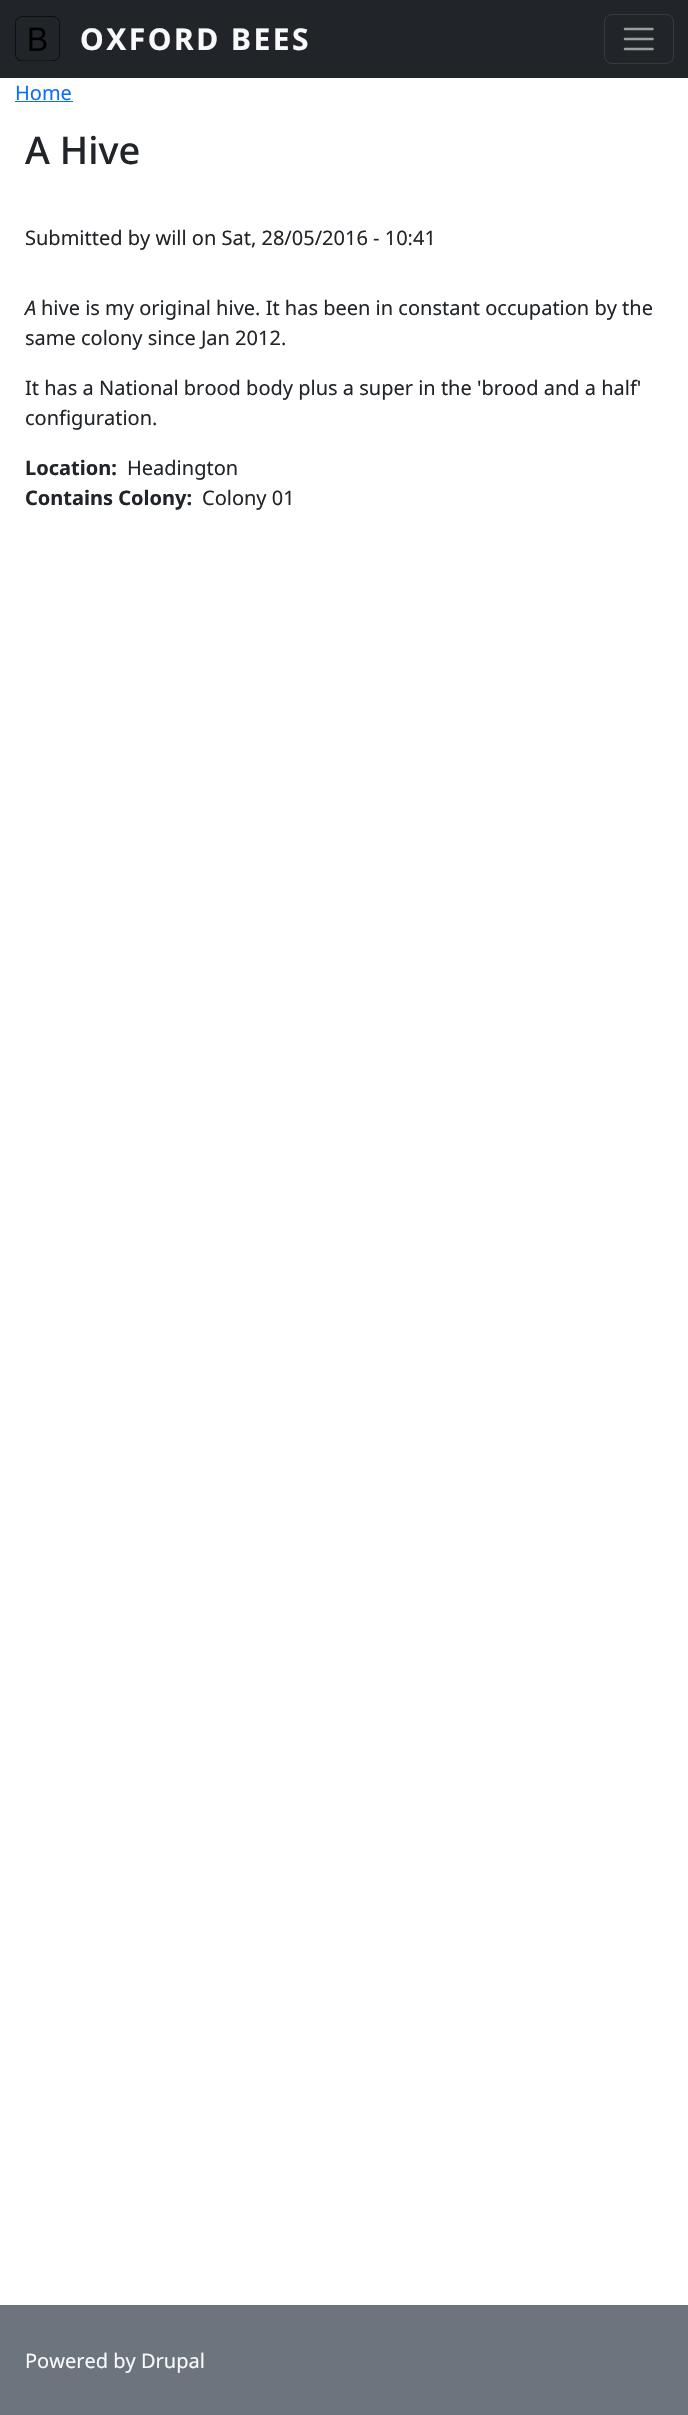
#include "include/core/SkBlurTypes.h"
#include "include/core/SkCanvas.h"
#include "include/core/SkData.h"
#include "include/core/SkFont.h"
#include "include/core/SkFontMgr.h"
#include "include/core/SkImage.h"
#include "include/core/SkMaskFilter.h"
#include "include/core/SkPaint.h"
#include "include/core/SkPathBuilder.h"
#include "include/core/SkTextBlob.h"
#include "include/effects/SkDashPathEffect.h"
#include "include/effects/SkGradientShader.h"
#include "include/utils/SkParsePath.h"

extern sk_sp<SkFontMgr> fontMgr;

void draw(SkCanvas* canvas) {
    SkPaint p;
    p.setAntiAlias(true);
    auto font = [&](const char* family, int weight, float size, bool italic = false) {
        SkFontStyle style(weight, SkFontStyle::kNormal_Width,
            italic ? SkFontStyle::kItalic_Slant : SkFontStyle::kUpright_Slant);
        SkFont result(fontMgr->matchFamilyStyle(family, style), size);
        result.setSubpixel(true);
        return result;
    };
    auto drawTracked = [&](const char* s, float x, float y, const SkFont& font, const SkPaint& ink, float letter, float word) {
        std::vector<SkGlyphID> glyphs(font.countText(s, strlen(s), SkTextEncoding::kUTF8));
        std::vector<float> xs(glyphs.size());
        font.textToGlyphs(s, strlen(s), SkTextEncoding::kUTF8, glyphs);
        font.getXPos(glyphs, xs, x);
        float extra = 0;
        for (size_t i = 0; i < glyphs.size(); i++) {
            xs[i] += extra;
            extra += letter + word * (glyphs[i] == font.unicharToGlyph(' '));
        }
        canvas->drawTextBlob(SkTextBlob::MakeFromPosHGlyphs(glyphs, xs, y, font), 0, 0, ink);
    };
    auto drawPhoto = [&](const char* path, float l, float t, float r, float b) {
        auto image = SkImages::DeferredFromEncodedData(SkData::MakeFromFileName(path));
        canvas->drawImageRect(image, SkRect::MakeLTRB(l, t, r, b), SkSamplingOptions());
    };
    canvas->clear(0xFFFFFFFF);
    p.setColor(0xFF212529);
    canvas->drawRect(SkRect::MakeLTRB(0, 0, 688, 78), p);
    drawPhoto("media/1.png", 15, 16, 60, 61);
    auto font1 = font("Noto Sans", 700, 30);
    p.setColor(0xFFF8F9FA);
    drawTracked("OXFORD BEES", 80, 50, font1, p, 2.5f, 0);
    p.setStyle(SkPaint::kStroke_Style);
    p.setStrokeWidth(1);
    p.setColor(0xFF373B3E);
    canvas->drawRoundRect(SkRect::MakeLTRB(604.5f, 14.5f, 673.5f, 63.5f), 7.5f, 7.5f, p);
    p.setStrokeWidth(2.5f);
    p.setStrokeCap(SkPaint::kRound_Cap);
    p.setColor(0xFF9B9D9F);
    canvas->drawPath(SkPathBuilder().moveTo(625, 29).lineTo(652.5f, 29).moveTo(625, 39).lineTo(652.5f, 39).moveTo(625, 49).lineTo(652.5f, 49).detach(), p);
    auto font2 = font("Noto Sans", 400, 20);
    p.setStyle(SkPaint::kFill_Style);
    p.setColor(0xFF0D6EFD);
    canvas->drawString("Home", 15, 100, font2, p);
    canvas->drawRect(SkRect::MakeLTRB(15, 101, 73, 102), p);
    auto font3 = font("Noto Sans", 500, 38);
    p.setColor(0xFF212529);
    canvas->drawString("A Hive", 25, 164, font3, p);
    canvas->drawString("Submitted by will on Sat, 28/05/2016 - 10:41", 25, 245, font2, p);
    auto font4 = font("Noto Sans", 400, 20, true);
    canvas->drawString("A", 25, 315, font4, p);
    {
        const struct { const char* s; float x, y; } items[] = {
            {"hive is my original hive. It has been in constant occupation by the", 41, 315},
            {"same colony since Jan 2012.", 25, 345},
            {"It has a National brood body plus a super in the 'brood and a half'", 25, 395},
            {"configuration.", 25, 425},
        };
        for (auto [s, x, y] : items) {
            canvas->drawString(s, x, y, font2, p);
        }
    }
    auto font5 = font("Noto Sans", 700, 20);
    canvas->drawString("Location:", 25, 475, font5, p);
    canvas->drawString("Headington", 127, 475, font2, p);
    canvas->drawString("Contains Colony:", 25, 505, font5, p);
    canvas->drawString("Colony 01", 202, 505, font2, p);
    p.setColor(0xFF6C757D);
    canvas->drawRect(SkRect::MakeLTRB(0, 2305, 688, 2415), p);
    p.setColor(0xFFF8F9FA);
    canvas->drawString("Powered by Drupal", 25, 2368, font2, p);
}
